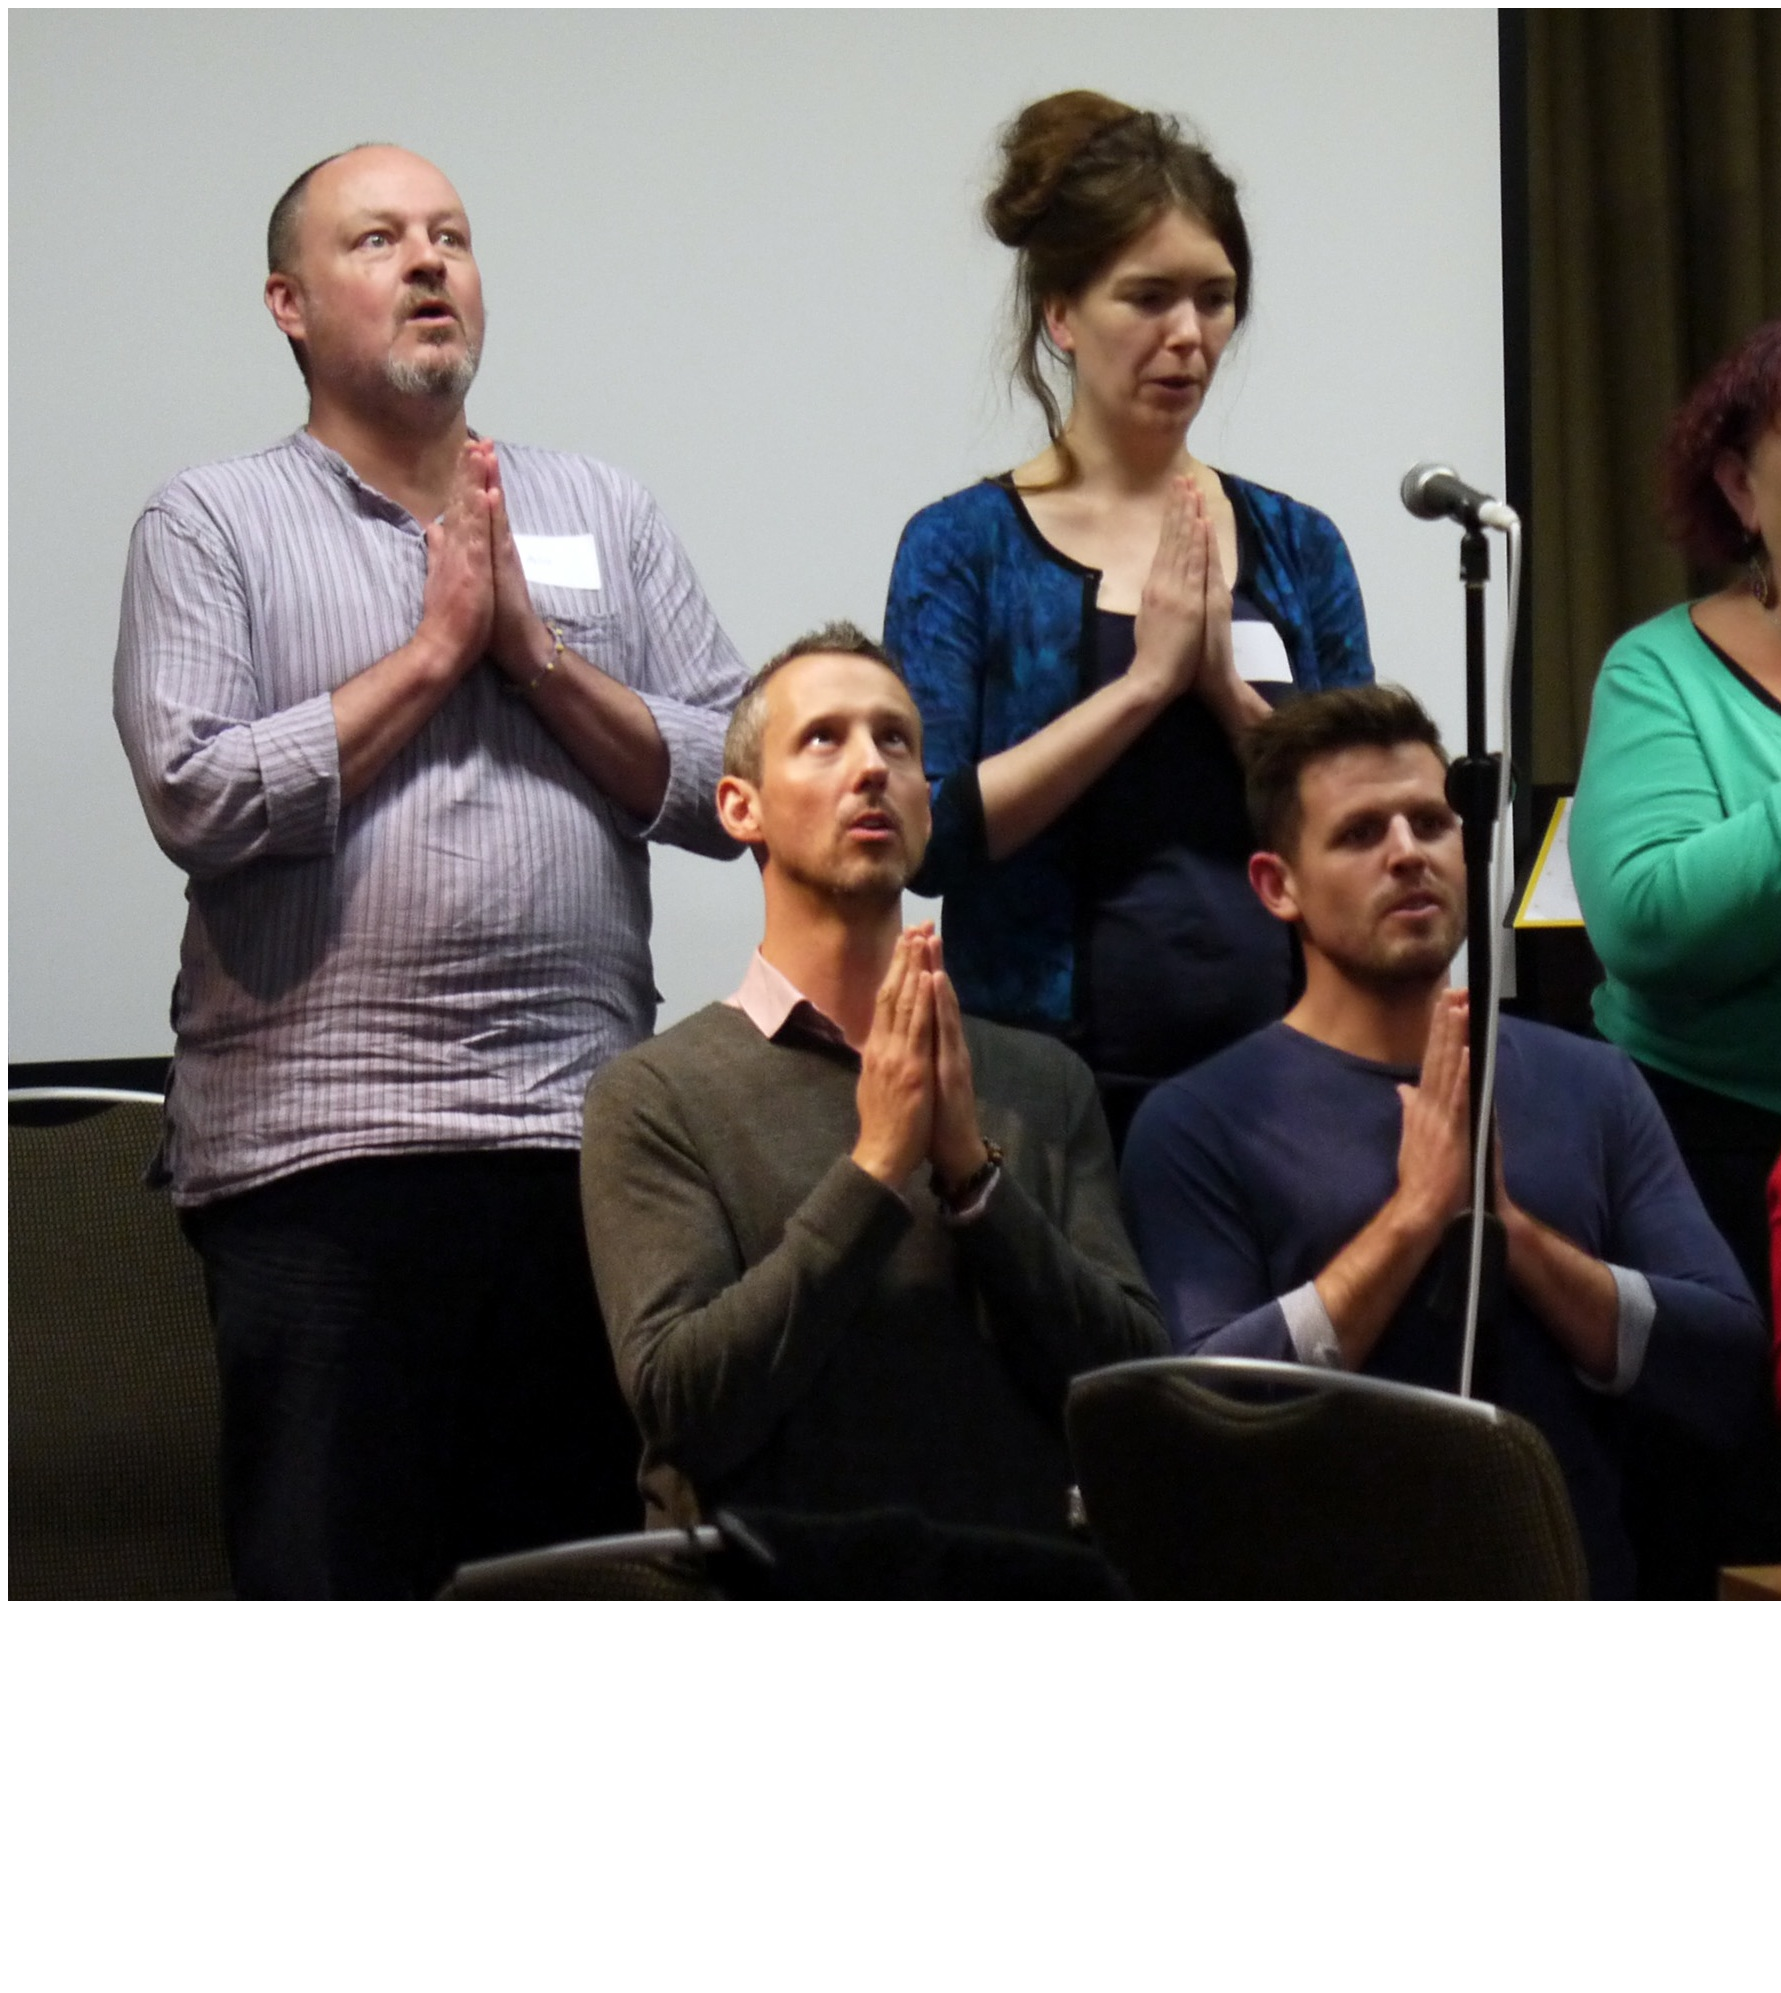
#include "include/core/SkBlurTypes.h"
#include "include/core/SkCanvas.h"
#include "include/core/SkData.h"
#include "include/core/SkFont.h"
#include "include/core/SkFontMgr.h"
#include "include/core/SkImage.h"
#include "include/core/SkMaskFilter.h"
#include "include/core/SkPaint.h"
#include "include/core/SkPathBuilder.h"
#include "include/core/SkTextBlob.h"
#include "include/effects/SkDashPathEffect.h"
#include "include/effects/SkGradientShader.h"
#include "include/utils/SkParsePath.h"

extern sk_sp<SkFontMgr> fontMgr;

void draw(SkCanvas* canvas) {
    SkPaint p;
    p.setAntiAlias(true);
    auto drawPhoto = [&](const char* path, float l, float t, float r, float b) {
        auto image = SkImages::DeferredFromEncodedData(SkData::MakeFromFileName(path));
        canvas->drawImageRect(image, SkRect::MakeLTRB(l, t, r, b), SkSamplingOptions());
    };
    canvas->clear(0xFFFFFFFF);
    drawPhoto("media/1.png", 8, 8, 1781, 1601);
}
